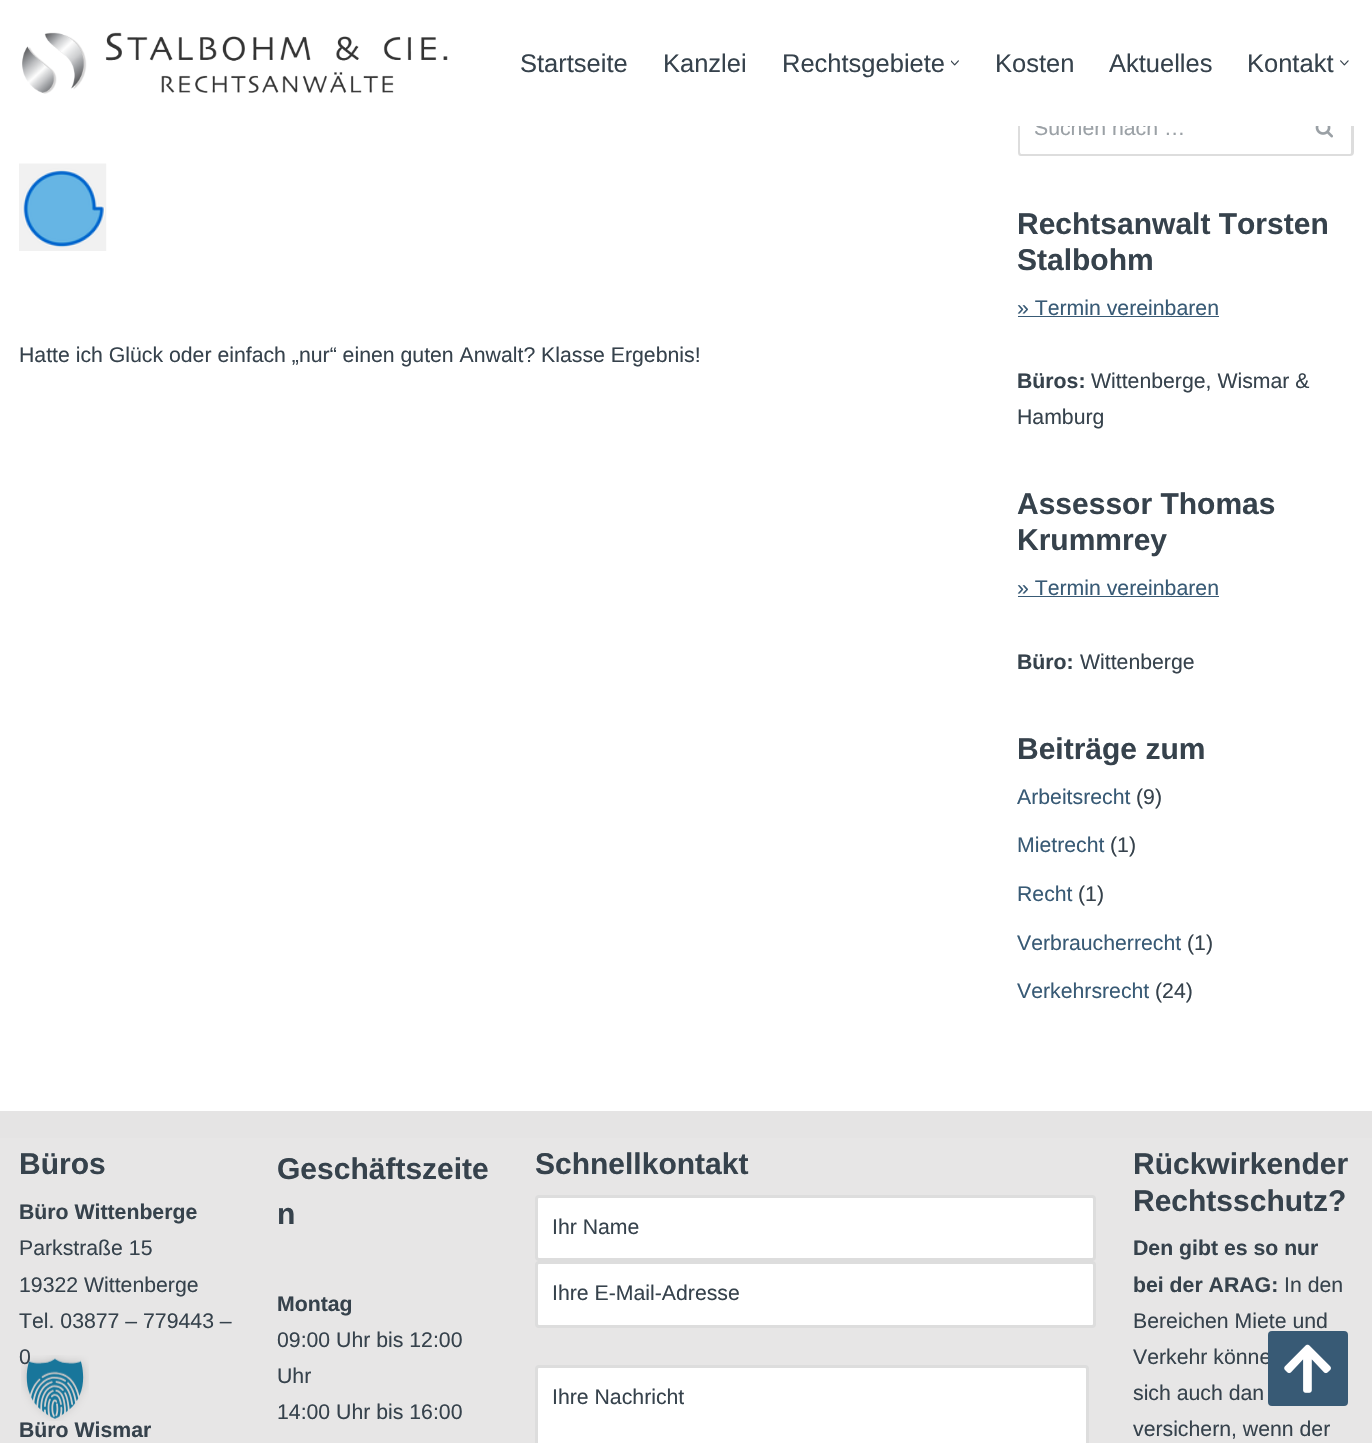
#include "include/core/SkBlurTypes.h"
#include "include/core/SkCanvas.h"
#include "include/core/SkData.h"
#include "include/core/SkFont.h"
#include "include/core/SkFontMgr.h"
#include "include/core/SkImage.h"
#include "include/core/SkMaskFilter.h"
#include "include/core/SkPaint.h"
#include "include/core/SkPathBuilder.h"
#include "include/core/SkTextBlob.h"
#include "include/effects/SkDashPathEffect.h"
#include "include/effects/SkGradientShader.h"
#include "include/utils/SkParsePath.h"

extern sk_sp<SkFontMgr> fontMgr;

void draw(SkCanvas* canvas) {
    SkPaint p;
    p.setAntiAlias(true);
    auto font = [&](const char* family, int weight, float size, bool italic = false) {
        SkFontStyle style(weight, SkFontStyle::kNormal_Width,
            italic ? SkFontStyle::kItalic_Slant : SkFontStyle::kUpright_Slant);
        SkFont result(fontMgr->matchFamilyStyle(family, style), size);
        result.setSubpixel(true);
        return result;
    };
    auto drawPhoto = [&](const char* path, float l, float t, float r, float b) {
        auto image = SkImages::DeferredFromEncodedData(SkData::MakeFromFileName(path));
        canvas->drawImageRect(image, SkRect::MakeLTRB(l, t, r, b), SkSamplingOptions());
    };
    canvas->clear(0xFFFFFFFF);
    p.setColor(0xFFDDDDDD);
    canvas->drawPath(SkPathBuilder(SkPathFillType::kEvenOdd).moveTo(1021, 101).lineTo(1298, 101).lineTo(1298, 156).lineTo(1021, 156).cubicTo(1019, 156, 1018, 155, 1018, 152).lineTo(1018, 105).cubicTo(1018, 103, 1019, 101, 1021, 101).close().moveTo(1021, 104).lineTo(1298, 104).lineTo(1298, 154).lineTo(1021, 154).cubicTo(1021, 154, 1020, 153, 1020, 152).lineTo(1020, 105).cubicTo(1020, 104, 1021, 104, 1021, 104).close().detach(), p);
    auto font1 = font("Liberation Sans", 400, 21.25f);
    p.setColor(0xFF9BA1A6);
    canvas->drawString("Suchen nach …", 1034, 135, font1, p);
    p.setColor(0xFFDDDDDD);
    canvas->drawPath(SkPathBuilder(SkPathFillType::kEvenOdd).moveTo(1298, 101).lineTo(1350, 101).cubicTo(1352, 101, 1354, 103, 1354, 105).lineTo(1354, 152).cubicTo(1354, 155, 1352, 156, 1350, 156).lineTo(1298, 156).close().moveTo(1298, 104).lineTo(1350, 104).cubicTo(1351, 104, 1351, 104, 1351, 105).lineTo(1351, 152).cubicTo(1351, 153, 1351, 154, 1350, 154).lineTo(1298, 154).close().detach(), p);
    p.setColor(0xFFFFFFFF);
    canvas->drawRect(SkRect::MakeLTRB(1018, 101, 1354, 126), p);
    drawPhoto("media/1.png", 22, 32, 448, 94);
    auto font2 = font("Liberation Sans", 400, 25.5f);
    p.setColor(0xFF36424C);
    {
        const struct { const char* s; float x, y; } items[] = {
            {"Startseite", 520, 72},
            {"Kanzlei", 663, 72},
            {"Rechtsgebiete", 782, 72},
        };
        for (auto [s, x, y] : items) {
            canvas->drawString(s, x, y, font2, p);
        }
    }
    drawPhoto("media/2.png", 951, 60, 959, 66);
    {
        const struct { const char* s; float x, y; } items[] = {
            {"Kosten", 995, 72},
            {"Aktuelles", 1109, 72},
            {"Kontakt", 1247, 72},
        };
        for (auto [s, x, y] : items) {
            canvas->drawString(s, x, y, font2, p);
        }
    }
    drawPhoto("media/3.png", 1340, 60, 1349, 66);
    drawPhoto("media/4.png", 19, 163, 107, 251);
    canvas->drawString("Hatte ich Glück oder einfach „nur“ einen guten Anwalt? Klasse Ergebnis!", 19, 362, font1, p);
    drawPhoto("media/5.png", 1315, 126, 1333, 138);
    auto font3 = font("Liberation Sans", 700, 30);
    canvas->drawString("Rechtsanwalt Torsten", 1017, 234, font3, p);
    canvas->drawString("Stalbohm", 1017, 270, font3, p);
    p.setColor(0xFF385A75);
    canvas->drawString("» Termin vereinbaren", 1017, 315, font1, p);
    canvas->drawRect(SkRect::MakeLTRB(1018, 316, 1219, 317), p);
    auto font4 = font("Liberation Sans", 700, 21.25f);
    p.setColor(0xFF36424C);
    canvas->drawString("Büros:", 1017, 388, font4, p);
    canvas->drawString("Wittenberge, Wismar &", 1091, 388, font1, p);
    canvas->drawString("Hamburg", 1017, 424, font1, p);
    canvas->drawString("Assessor Thomas", 1017, 514, font3, p);
    canvas->drawString("Krummrey", 1017, 550, font3, p);
    p.setColor(0xFF385A75);
    canvas->drawString("» Termin vereinbaren", 1017, 595, font1, p);
    canvas->drawRect(SkRect::MakeLTRB(1018, 596, 1219, 597), p);
    p.setColor(0xFF36424C);
    canvas->drawString("Büro:", 1017, 669, font4, p);
    canvas->drawString("Wittenberge", 1080, 669, font1, p);
    canvas->drawString("Beiträge zum", 1017, 759, font3, p);
    p.setColor(0xFF385A75);
    canvas->drawString("Arbeitsrecht", 1017, 804, font1, p);
    p.setColor(0xFF36424C);
    canvas->drawString("(9)", 1136, 804, font1, p);
    p.setColor(0xFF385A75);
    canvas->drawString("Mietrecht", 1017, 852, font1, p);
    p.setColor(0xFF36424C);
    canvas->drawString("(1)", 1110, 852, font1, p);
    p.setColor(0xFF385A75);
    canvas->drawString("Recht", 1017, 901, font1, p);
    p.setColor(0xFF36424C);
    canvas->drawString("(1)", 1078, 901, font1, p);
    p.setColor(0xFF385A75);
    canvas->drawString("Verbraucherrecht", 1017, 950, font1, p);
    p.setColor(0xFF36424C);
    canvas->drawString("(1)", 1187, 950, font1, p);
    p.setColor(0xFF385A75);
    canvas->drawString("Verkehrsrecht", 1017, 998, font1, p);
    p.setColor(0xFF36424C);
    canvas->drawString("(24)", 1155, 998, font1, p);
    p.setColor(0xFFE7E6E6);
    canvas->drawRect(SkRect::MakeLTRB(0, 1138, 1372, 1443), p);
    p.setColor(0xFFE5E4E4);
    canvas->drawRect(SkRect::MakeLTRB(0, 1111, 1372, 1138), p);
    p.setColor(0xFF36424C);
    canvas->drawString("Büros", 19, 1174, font3, p);
    canvas->drawString("Büro Wittenberge", 19, 1219, font4, p);
    {
        const struct { const char* s; float x, y; } items[] = {
            {"Parkstraße 15", 19, 1255},
            {"19322 Wittenberge", 19, 1292},
            {"Tel. 03877 – 779443 –", 19, 1328},
            {"0", 19, 1364},
        };
        for (auto [s, x, y] : items) {
            canvas->drawString(s, x, y, font1, p);
        }
    }
    canvas->drawString("Büro Wismar", 19, 1437, font4, p);
    canvas->drawString("Geschäftszeite", 277, 1179, font3, p);
    canvas->drawString("n", 277, 1224, font3, p);
    canvas->drawString("Montag", 277, 1311, font4, p);
    {
        const struct { const char* s; float x, y; } items[] = {
            {"09:00 Uhr bis 12:00", 277, 1347},
            {"Uhr", 277, 1383},
            {"14:00 Uhr bis 16:00", 277, 1419},
        };
        for (auto [s, x, y] : items) {
            canvas->drawString(s, x, y, font1, p);
        }
    }
    canvas->drawString("Schnellkontakt", 535, 1174, font3, p);
    p.setColor(0xFFFFFFFF);
    canvas->drawRoundRect(SkRect::MakeLTRB(536.5f, 1196.5f, 1094.5f, 1259.5f), 2.5f, 2.5f, p);
    p.setStyle(SkPaint::kStroke_Style);
    p.setStrokeWidth(3);
    p.setColor(0xFFDDDDDD);
    canvas->drawRoundRect(SkRect::MakeLTRB(536.5f, 1196.5f, 1094.5f, 1259.5f), 2.5f, 2.5f, p);
    p.setStyle(SkPaint::kFill_Style);
    p.setColor(0xFF36424C);
    canvas->drawString("Ihr Name", 552, 1234, font1, p);
    p.setColor(0xFFFFFFFF);
    canvas->drawRoundRect(SkRect::MakeLTRB(536.5f, 1262.5f, 1094.5f, 1326.5f), 2.5f, 2.5f, p);
    p.setStyle(SkPaint::kStroke_Style);
    p.setColor(0xFFDDDDDD);
    canvas->drawRoundRect(SkRect::MakeLTRB(536.5f, 1262.5f, 1094.5f, 1326.5f), 2.5f, 2.5f, p);
    p.setStyle(SkPaint::kFill_Style);
    p.setColor(0xFF36424C);
    canvas->drawString("Ihre E-Mail-Adresse", 552, 1300, font1, p);
    p.setColor(0xFFFFFFFF);
    canvas->drawRoundRect(SkRect::MakeLTRB(536.5f, 1366.5f, 1087.5f, 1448.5f), 2.5f, 2.5f, p);
    p.setStyle(SkPaint::kStroke_Style);
    p.setColor(0xFFDDDDDD);
    canvas->drawRoundRect(SkRect::MakeLTRB(536.5f, 1366.5f, 1087.5f, 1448.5f), 2.5f, 2.5f, p);
    p.setStyle(SkPaint::kFill_Style);
    p.setColor(0xFF36424C);
    canvas->drawString("Ihre Nachricht", 552, 1404, font1, p);
    canvas->drawString("Rückwirkender", 1133, 1174, font3, p);
    canvas->drawString("Rechtsschutz?", 1133, 1211, font3, p);
    canvas->drawString("Den gibt es so nur", 1133, 1255, font4, p);
    canvas->drawString("bei der ARAG:", 1133, 1292, font4, p);
    {
        const struct { const char* s; float x, y; } items[] = {
            {"In den", 1284, 1292},
            {"Bereichen Miete und", 1133, 1328},
            {"Verkehr könne", 1133, 1364},
            {"sich auch dan", 1133, 1400},
            {"versichern, wenn der", 1133, 1436},
        };
        for (auto [s, x, y] : items) {
            canvas->drawString(s, x, y, font1, p);
        }
    }
    p.setColor(0xFF385A75);
    canvas->drawRoundRect(SkRect::MakeLTRB(1268, 1331, 1348, 1406), 4, 4, p);
    drawPhoto("media/6.png", 1284, 1344, 1331, 1393);
    drawPhoto("media/7.png", 21, 1355, 89, 1421);
}
